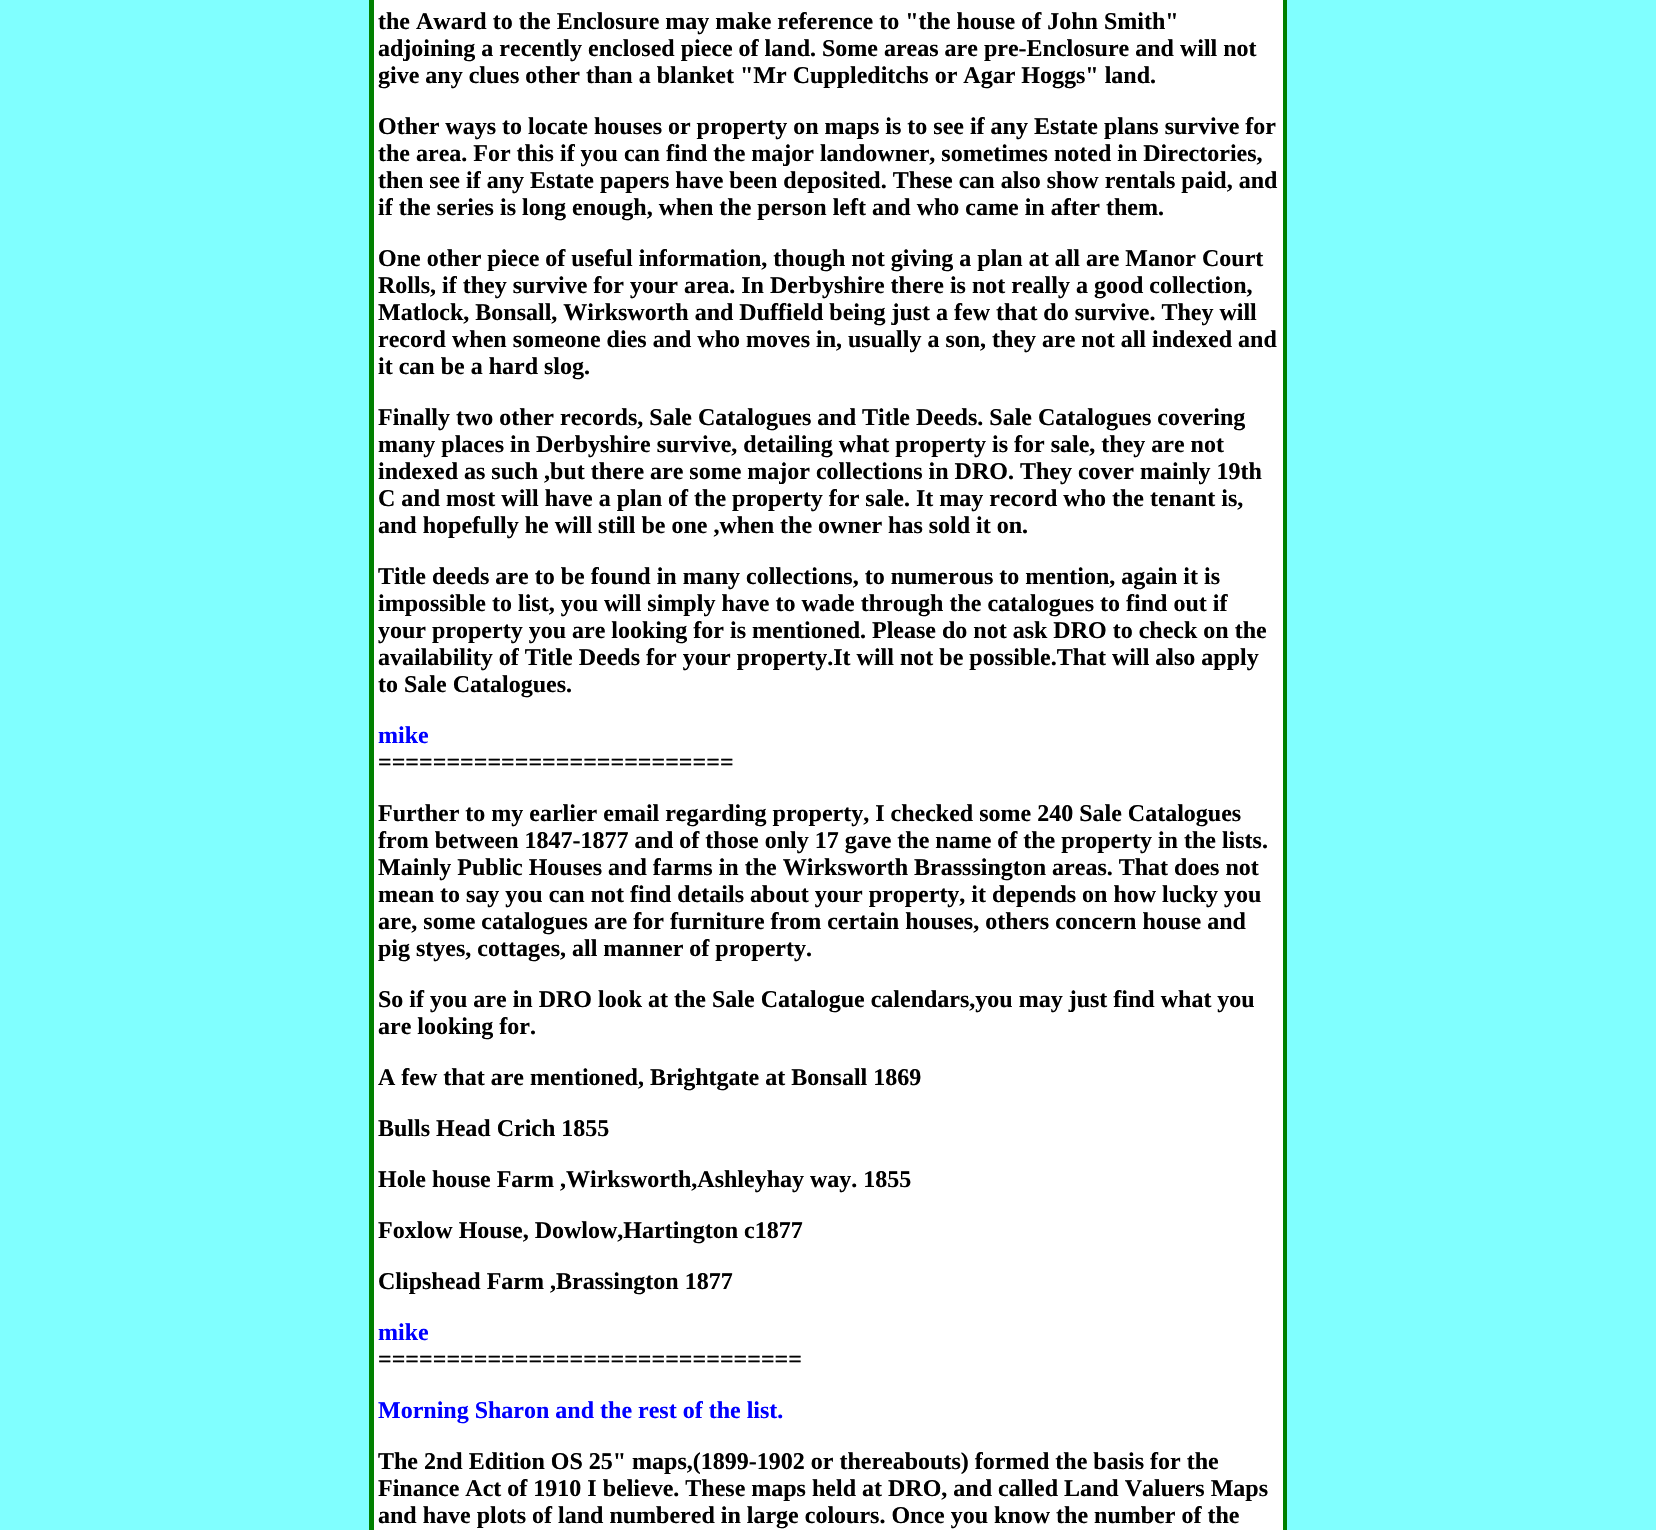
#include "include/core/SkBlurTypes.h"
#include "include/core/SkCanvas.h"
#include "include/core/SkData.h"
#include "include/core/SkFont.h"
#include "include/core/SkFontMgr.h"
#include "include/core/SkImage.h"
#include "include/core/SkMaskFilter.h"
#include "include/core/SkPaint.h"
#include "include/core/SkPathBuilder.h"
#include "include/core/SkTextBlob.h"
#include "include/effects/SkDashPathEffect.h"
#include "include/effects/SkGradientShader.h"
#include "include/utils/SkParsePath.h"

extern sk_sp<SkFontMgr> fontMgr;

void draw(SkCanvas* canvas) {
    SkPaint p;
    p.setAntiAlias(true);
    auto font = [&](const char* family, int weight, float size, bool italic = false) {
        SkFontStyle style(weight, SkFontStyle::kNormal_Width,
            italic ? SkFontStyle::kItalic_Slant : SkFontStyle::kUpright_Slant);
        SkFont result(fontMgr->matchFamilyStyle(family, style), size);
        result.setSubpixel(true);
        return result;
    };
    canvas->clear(0xFF80FFFF);
    p.setColor(0xFF008000);
    canvas->drawRect(SkRect::MakeLTRB(369, 0, 1287, 1530), p);
    p.setColor(0xFFFFFFFF);
    canvas->drawRect(SkRect::MakeLTRB(374, 0, 1283, 1530), p);
    auto font1 = font("Liberation Serif", 700, 24);
    p.setColor(0xFF000000);
    {
        const struct { const char* s; float x, y; } items[] = {
            {"the Award to the Enclosure may make reference to \"the house of John Smith\"", 378, 29},
            {"adjoining a recently enclosed piece of land. Some areas are pre-Enclosure and will not", 378, 56},
            {"give any clues other than a blanket \"Mr Cuppleditchs or Agar Hoggs\" land.", 378, 83},
            {"Other ways to locate houses or property on maps is to see if any Estate plans survive for", 378, 134},
            {"the area. For this if you can find the major landowner, sometimes noted in Directories,", 378, 161},
            {"then see if any Estate papers have been deposited. These can also show rentals paid, and", 378, 188},
            {"if the series is long enough, when the person left and who came in after them.", 378, 215},
            {"One other piece of useful information, though not giving a plan at all are Manor Court", 378, 266},
            {"Rolls, if they survive for your area. In Derbyshire there is not really a good collection,", 378, 293},
            {"Matlock, Bonsall, Wirksworth and Duffield being just a few that do survive. They will", 378, 320},
            {"record when someone dies and who moves in, usually a son, they are not all indexed and", 378, 347},
            {"it can be a hard slog.", 378, 374},
            {"Finally two other records, Sale Catalogues and Title Deeds. Sale Catalogues covering", 378, 425},
            {"many places in Derbyshire survive, detailing what property is for sale, they are not", 378, 452},
            {"indexed as such ,but there are some major collections in DRO. They cover mainly 19th", 378, 479},
            {"C and most will have a plan of the property for sale. It may record who the tenant is,", 378, 506},
            {"and hopefully he will still be one ,when the owner has sold it on.", 378, 533},
            {"Title deeds are to be found in many collections, to numerous to mention, again it is", 378, 584},
            {"impossible to list, you will simply have to wade through the catalogues to find out if", 378, 611},
            {"your property you are looking for is mentioned. Please do not ask DRO to check on the", 378, 638},
            {"availability of Title Deeds for your property.It will not be possible.That will also apply", 378, 665},
            {"to Sale Catalogues.", 378, 692},
        };
        for (auto [s, x, y] : items) {
            canvas->drawString(s, x, y, font1, p);
        }
    }
    p.setColor(0xFF0000FF);
    canvas->drawString("mike", 378, 743, font1, p);
    p.setColor(0xFF000000);
    {
        const struct { const char* s; float x, y; } items[] = {
            {"==========================", 378, 770},
            {"Further to my earlier email regarding property, I checked some 240 Sale Catalogues", 378, 821},
            {"from between 1847-1877 and of those only 17 gave the name of the property in the lists.", 378, 848},
            {"Mainly Public Houses and farms in the Wirksworth Brasssington areas. That does not", 378, 875},
            {"mean to say you can not find details about your property, it depends on how lucky you", 378, 902},
            {"are, some catalogues are for furniture from certain houses, others concern house and", 378, 929},
            {"pig styes, cottages, all manner of property.", 378, 956},
            {"So if you are in DRO look at the Sale Catalogue calendars,you may just find what you", 378, 1007},
            {"are looking for.", 378, 1034},
            {"A few that are mentioned, Brightgate at Bonsall 1869", 378, 1085},
            {"Bulls Head Crich 1855", 378, 1136},
            {"Hole house Farm ,Wirksworth,Ashleyhay way. 1855", 378, 1187},
            {"Foxlow House, Dowlow,Hartington c1877", 378, 1238},
            {"Clipshead Farm ,Brassington 1877", 378, 1289},
        };
        for (auto [s, x, y] : items) {
            canvas->drawString(s, x, y, font1, p);
        }
    }
    p.setColor(0xFF0000FF);
    canvas->drawString("mike", 378, 1340, font1, p);
    p.setColor(0xFF000000);
    canvas->drawString("===============================", 378, 1367, font1, p);
    p.setColor(0xFF0000FF);
    canvas->drawString("Morning Sharon and the rest of the list.", 378, 1418, font1, p);
    p.setColor(0xFF000000);
    {
        const struct { const char* s; float x, y; } items[] = {
            {"The 2nd Edition OS 25\" maps,(1899-1902 or thereabouts) formed the basis for the", 378, 1469},
            {"Finance Act of 1910 I believe. These maps held at DRO, and called Land Valuers Maps", 378, 1496},
            {"and have plots of land numbered in large colours. Once you know the number of the", 378, 1523},
        };
        for (auto [s, x, y] : items) {
            canvas->drawString(s, x, y, font1, p);
        }
    }
}
